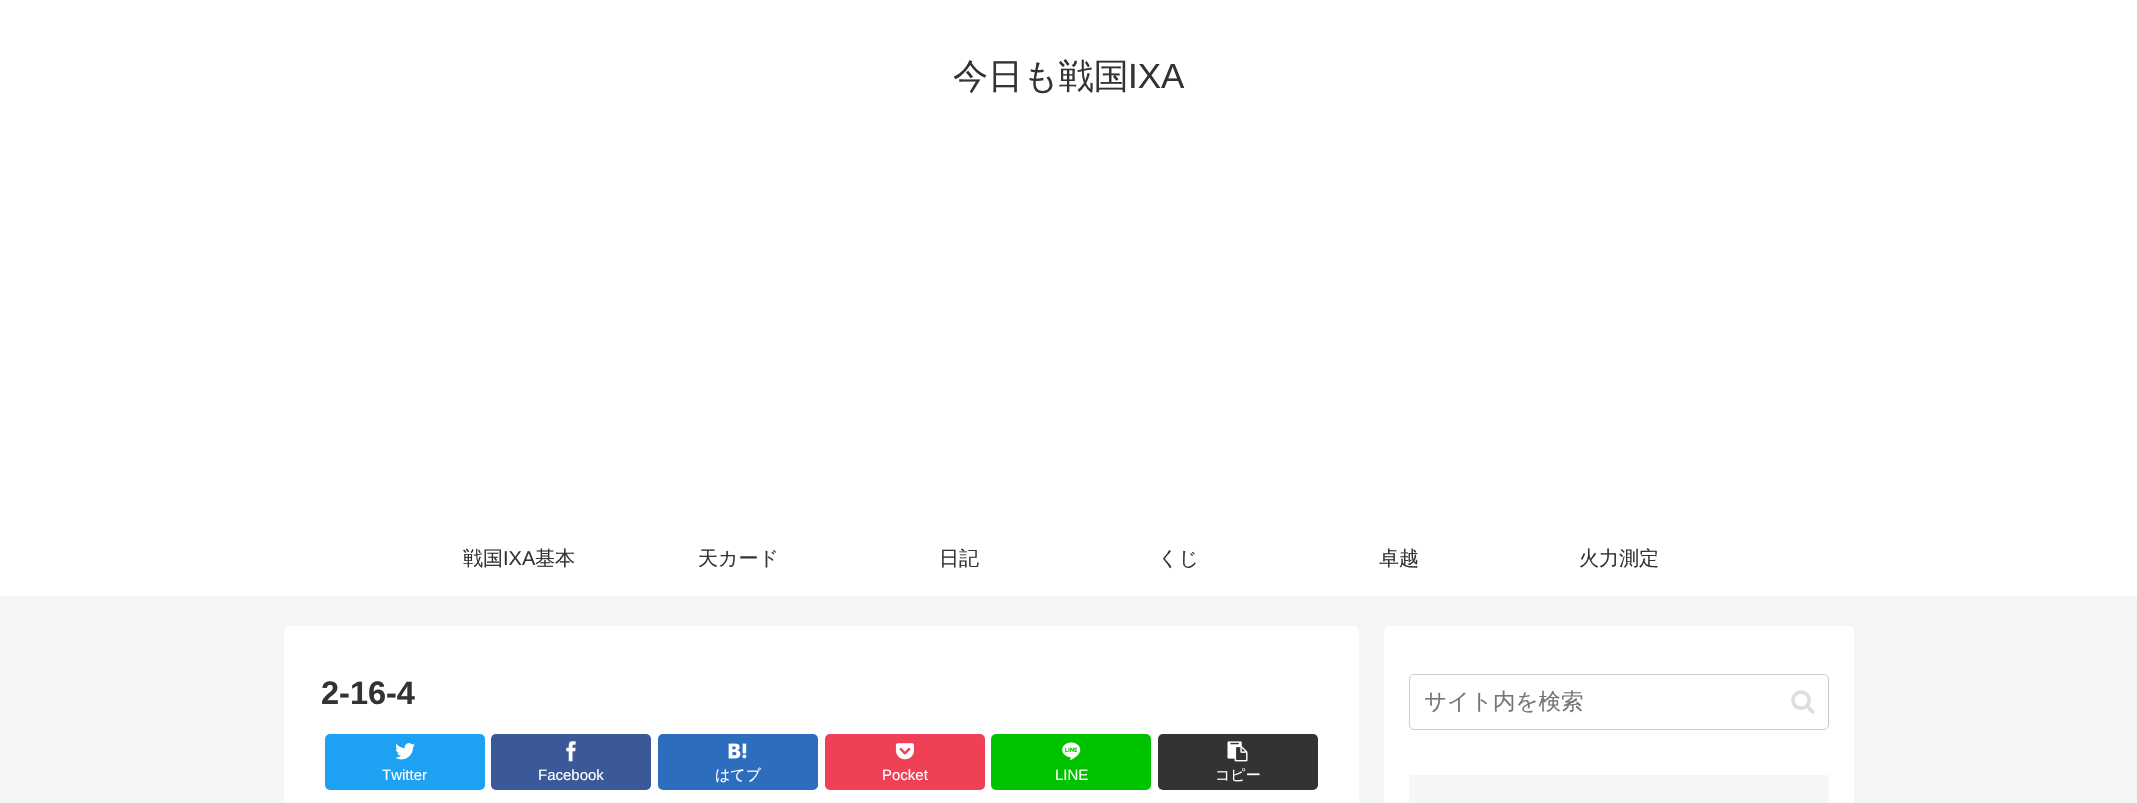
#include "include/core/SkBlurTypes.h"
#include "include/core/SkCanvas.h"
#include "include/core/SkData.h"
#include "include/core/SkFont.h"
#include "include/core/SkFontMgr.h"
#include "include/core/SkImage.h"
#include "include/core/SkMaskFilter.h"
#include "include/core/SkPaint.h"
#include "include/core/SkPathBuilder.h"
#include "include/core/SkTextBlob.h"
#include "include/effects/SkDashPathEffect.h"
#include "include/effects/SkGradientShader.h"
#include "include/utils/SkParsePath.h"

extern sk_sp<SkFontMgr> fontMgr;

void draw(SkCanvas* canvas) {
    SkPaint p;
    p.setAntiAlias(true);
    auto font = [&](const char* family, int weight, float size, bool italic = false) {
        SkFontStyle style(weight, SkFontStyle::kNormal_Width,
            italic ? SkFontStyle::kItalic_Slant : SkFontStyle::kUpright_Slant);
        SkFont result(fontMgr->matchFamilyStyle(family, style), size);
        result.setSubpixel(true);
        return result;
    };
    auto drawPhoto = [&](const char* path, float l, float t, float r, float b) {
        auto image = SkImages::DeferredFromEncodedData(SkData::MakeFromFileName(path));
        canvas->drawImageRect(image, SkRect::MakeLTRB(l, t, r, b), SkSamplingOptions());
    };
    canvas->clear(0xFFF4F5F7);
    p.setColor(0xFFFFFFFF);
    canvas->drawRect(SkRect::MakeLTRB(0, 0, 2137, 596), p);
    auto font1 = font("WenQuanYi Zen Hei", 500, 35);
    p.setColor(0xFF333333);
    canvas->drawString("今日も戦国", 953, 88, font1, p);
    auto font2 = font("Liberation Sans", 400, 35);
    canvas->drawString("IXA", 1128, 88, font2, p);
    auto font3 = font("WenQuanYi Zen Hei", 500, 20);
    canvas->drawString("戦国", 463, 565, font3, p);
    auto font4 = font("Liberation Sans", 400, 20);
    canvas->drawString("IXA", 503, 565, font4, p);
    {
        const struct { const char* s; float x, y; } items[] = {
            {"基本", 535, 565},
            {"天カード", 698, 565},
            {"日記", 939, 565},
            {"くじ", 1158, 565},
            {"卓越", 1379, 565},
            {"火力測定", 1579, 565},
        };
        for (auto [s, x, y] : items) {
            canvas->drawString(s, x, y, font3, p);
        }
    }
    p.setColor(0xFFFFFFFF);
    canvas->drawRoundRect(SkRect::MakeLTRB(284, 626, 1359, 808), 5, 5, p);
    auto font5 = font("Liberation Sans", 700, 32.5f);
    p.setColor(0xFF333333);
    canvas->drawString("2-16-4", 321, 704, font5, p);
    p.setColor(0xFF1DA1F2);
    canvas->drawRoundRect(SkRect::MakeLTRB(325, 734, 485, 790), 5, 5, p);
    drawPhoto("media/1.png", 395, 743, 415, 760);
    auto font6 = font("Liberation Sans", 400, 15);
    p.setColor(0xFFFFFFFF);
    canvas->drawString("Twitter", 382, 780, font6, p);
    p.setColor(0xFF3B5998);
    canvas->drawRoundRect(SkRect::MakeLTRB(491, 734, 651, 790), 5, 5, p);
    drawPhoto("media/2.png", 566, 741, 576, 762);
    p.setColor(0xFFFFFFFF);
    canvas->drawString("Facebook", 538, 780, font6, p);
    p.setColor(0xFF2C6EBD);
    canvas->drawRoundRect(SkRect::MakeLTRB(658, 734, 818, 790), 5, 5, p);
    drawPhoto("media/3.png", 728, 743, 747, 759);
    auto font7 = font("WenQuanYi Zen Hei", 500, 15);
    p.setColor(0xFFFFFFFF);
    canvas->drawString("はてブ", 715, 780, font7, p);
    p.setColor(0xFFEF4056);
    canvas->drawRoundRect(SkRect::MakeLTRB(825, 734, 985, 790), 5, 5, p);
    drawPhoto("media/4.png", 895, 743, 914, 760);
    p.setColor(0xFFFFFFFF);
    canvas->drawString("Pocket", 882, 780, font6, p);
    p.setColor(0xFF00C300);
    canvas->drawRoundRect(SkRect::MakeLTRB(991, 734, 1151, 790), 5, 5, p);
    drawPhoto("media/5.png", 1062, 742, 1081, 760);
    p.setColor(0xFFFFFFFF);
    canvas->drawString("LINE", 1055, 780, font6, p);
    p.setColor(0xFF333333);
    canvas->drawRoundRect(SkRect::MakeLTRB(1158, 734, 1318, 790), 5, 5, p);
    drawPhoto("media/6.png", 1227, 741, 1248, 762);
    p.setColor(0xFFFFFFFF);
    canvas->drawString("コピー", 1215, 780, font7, p);
    canvas->drawRoundRect(SkRect::MakeLTRB(1384, 626, 1854, 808), 5, 5, p);
    p.setStyle(SkPaint::kStroke_Style);
    p.setStrokeWidth(1);
    p.setColor(0xFFCCCCCC);
    canvas->drawRoundRect(SkRect::MakeLTRB(1409.5f, 674.5f, 1828.5f, 729.5f), 4.5f, 4.5f, p);
    auto font8 = font("WenQuanYi Zen Hei", 500, 22.5f);
    p.setStyle(SkPaint::kFill_Style);
    p.setColor(0xFF757575);
    canvas->drawString("サイト内を検索", 1424, 709, font8, p);
    drawPhoto("media/7.png", 1791, 690, 1815, 714);
    p.setColor(0xFFF5F6F7);
    canvas->drawRoundRect(SkRect::MakeLTRB(1409, 775, 1829, 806), 2.5f, 2.5f, p);
}
